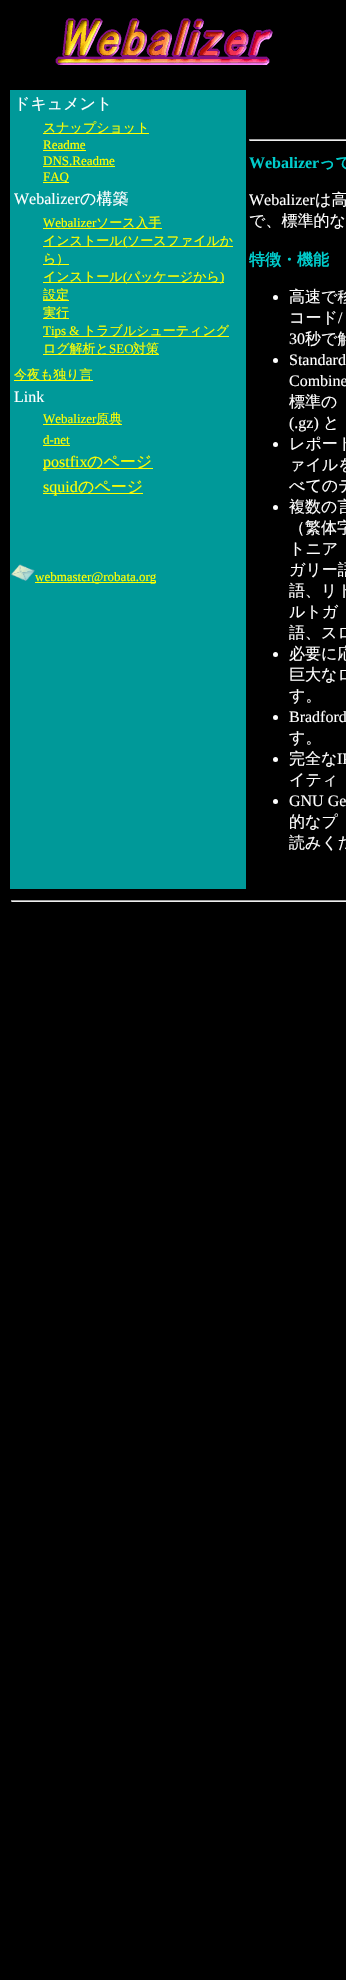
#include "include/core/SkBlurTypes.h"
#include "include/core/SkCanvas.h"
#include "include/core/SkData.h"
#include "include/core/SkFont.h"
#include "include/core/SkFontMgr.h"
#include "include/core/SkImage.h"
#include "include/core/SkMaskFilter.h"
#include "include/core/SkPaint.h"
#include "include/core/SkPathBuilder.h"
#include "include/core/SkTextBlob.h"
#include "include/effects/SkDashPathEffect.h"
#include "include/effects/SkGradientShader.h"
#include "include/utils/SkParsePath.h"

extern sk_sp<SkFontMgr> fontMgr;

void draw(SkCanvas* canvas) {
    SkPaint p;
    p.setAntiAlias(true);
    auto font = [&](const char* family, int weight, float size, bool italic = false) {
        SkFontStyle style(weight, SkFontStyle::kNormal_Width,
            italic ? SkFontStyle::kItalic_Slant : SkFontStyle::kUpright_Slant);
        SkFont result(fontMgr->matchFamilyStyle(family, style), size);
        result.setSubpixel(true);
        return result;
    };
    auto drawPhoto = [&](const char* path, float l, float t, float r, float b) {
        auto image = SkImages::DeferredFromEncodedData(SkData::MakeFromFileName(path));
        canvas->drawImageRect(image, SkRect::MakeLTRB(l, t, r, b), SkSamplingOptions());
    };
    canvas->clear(0xFF000000);
    drawPhoto("media/1.png", 55, 18, 273, 65);
    p.setColor(0xFF009999);
    canvas->drawRect(SkRect::MakeLTRB(10, 90, 246, 889), p);
    auto font1 = font("WenQuanYi Zen Hei", 500, 16);
    p.setColor(0xFFFFFFFF);
    canvas->drawString("ドキュメント", 14, 109, font1, p);
    p.setColor(0xFFFFFF00);
    canvas->drawRect(SkRect::MakeLTRB(43, 133, 149, 134), p);
    auto font2 = font("WenQuanYi Zen Hei", 500, 13);
    canvas->drawString("スナップショット", 43, 132, font2, p);
    auto font3 = font("Liberation Serif", 400, 13);
    canvas->drawString("Readme", 43, 149, font3, p);
    canvas->drawRect(SkRect::MakeLTRB(43, 150, 86, 151), p);
    canvas->drawString("DNS.Readme", 43, 165, font3, p);
    canvas->drawRect(SkRect::MakeLTRB(43, 166, 115, 167), p);
    canvas->drawRect(SkRect::MakeLTRB(43, 182, 69, 183), p);
    canvas->drawString("FAQ", 43, 181, font3, p);
    auto font4 = font("Liberation Serif", 400, 16);
    p.setColor(0xFFFFFFFF);
    canvas->drawString("Webalizer", 14, 204, font4, p);
    canvas->drawString("の構築", 80, 204, font1, p);
    p.setColor(0xFFFFFF00);
    canvas->drawString("Webalizer", 43, 227, font3, p);
    canvas->drawRect(SkRect::MakeLTRB(43, 228, 162, 229), p);
    canvas->drawString("ソース入手", 96, 227, font2, p);
    canvas->drawRect(SkRect::MakeLTRB(43, 246, 233, 247), p);
    canvas->drawString("インストール", 43, 245, font2, p);
    canvas->drawString("(", 123, 245, font3, p);
    canvas->drawString("ソースファイルか", 127, 245, font2, p);
    canvas->drawRect(SkRect::MakeLTRB(43, 264, 69, 265), p);
    canvas->drawString("ら）", 43, 263, font2, p);
    canvas->drawRect(SkRect::MakeLTRB(43, 282, 224, 283), p);
    canvas->drawString("インストール", 43, 281, font2, p);
    canvas->drawString("(", 123, 281, font3, p);
    canvas->drawString("パッケージから", 127, 281, font2, p);
    canvas->drawString(")", 220, 281, font3, p);
    canvas->drawRect(SkRect::MakeLTRB(43, 300, 69, 301), p);
    canvas->drawString("設定", 43, 299, font2, p);
    canvas->drawRect(SkRect::MakeLTRB(43, 318, 69, 319), p);
    canvas->drawString("実行", 43, 317, font2, p);
    canvas->drawRect(SkRect::MakeLTRB(43, 336, 229, 337), p);
    canvas->drawString("Tips &", 43, 335, font3, p);
    canvas->drawString("トラブルシューティング", 83, 335, font2, p);
    canvas->drawRect(SkRect::MakeLTRB(43, 354, 159, 355), p);
    canvas->drawString("ログ解析と", 43, 353, font2, p);
    canvas->drawString("SEO", 109, 353, font3, p);
    canvas->drawString("対策", 133, 353, font2, p);
    canvas->drawRect(SkRect::MakeLTRB(14, 380, 93, 381), p);
    canvas->drawString("今夜も独り言", 14, 379, font2, p);
    p.setColor(0xFFFFFFFF);
    canvas->drawString("Link", 14, 402, font4, p);
    p.setColor(0xFFFFFF00);
    canvas->drawString("Webalizer", 43, 423, font3, p);
    canvas->drawRect(SkRect::MakeLTRB(43, 424, 122, 425), p);
    canvas->drawString("原典", 96, 423, font2, p);
    canvas->drawString("d-net", 43, 444, font3, p);
    canvas->drawRect(SkRect::MakeLTRB(43, 445, 70, 446), p);
    canvas->drawRect(SkRect::MakeLTRB(43, 468, 153, 469), p);
    canvas->drawString("postfix", 43, 467, font4, p);
    canvas->drawString("のページ", 87, 467, font1, p);
    canvas->drawRect(SkRect::MakeLTRB(43, 493, 143, 494), p);
    canvas->drawString("squid", 43, 492, font4, p);
    canvas->drawString("のページ", 78, 492, font1, p);
    drawPhoto("media/2.png", 11, 564, 35, 581);
    canvas->drawRect(SkRect::MakeLTRB(35, 582, 156, 583), p);
    canvas->drawString("webmaster@robata.org", 35, 581, font3, p);
    {
        const struct { float l, t, r, b; SkColor color; } items[] = {
            {249, 139, 346, 140, 0xFF9F9F9F},
            {249, 140, 346, 141, 0xFFEEEEEE},
            {249, 139, 250, 141, 0xFF9F9F9F},
        };
        for (auto [l, t, r, b, color] : items) {
            p.setColor(color);
            canvas->drawRect(SkRect::MakeLTRB(l, t, r, b), p);
        }
    }
    auto font5 = font("Liberation Serif", 700, 16);
    p.setColor(0xFF00CCCC);
    canvas->drawString("Webalizer", 249, 168, font5, p);
    auto font6 = font("WenQuanYi Zen Hei", 700, 16);
    canvas->drawString("って", 319, 168, font6, p);
    p.setColor(0xFFFFFFFF);
    canvas->drawString("Webalizer", 249, 205, font4, p);
    canvas->drawString("は高", 315, 205, font1, p);
    canvas->drawString("で、標準的な", 249, 226, font1, p);
    p.setColor(0xFF00CCCC);
    canvas->drawString("特徴・機能", 249, 265, font6, p);
    p.setColor(0xFFFFFFFF);
    canvas->drawCircle(275.5f, 297.5f, 2.5f, p);
    canvas->drawString("高速で移", 289, 302, font1, p);
    canvas->drawString("コード", 289, 323, font1, p);
    canvas->drawString("/", 338, 323, font4, p);
    canvas->drawString("30", 289, 344, font4, p);
    canvas->drawString("秒で解", 305, 344, font1, p);
    canvas->drawCircle(275.5f, 360.5f, 2.5f, p);
    canvas->drawString("Standard", 289, 365, font4, p);
    canvas->drawString("Combine", 289, 386, font4, p);
    canvas->drawString("標準の", 289, 407, font1, p);
    canvas->drawString("(.gz)", 289, 428, font4, p);
    canvas->drawString("と", 323, 428, font1, p);
    canvas->drawCircle(275.5f, 444.5f, 2.5f, p);
    {
        const struct { const char* s; float x, y; } items[] = {
            {"レポート", 289, 449},
            {"ァイルを", 289, 470},
            {"べてのデ", 289, 491},
        };
        for (auto [s, x, y] : items) {
            canvas->drawString(s, x, y, font1, p);
        }
    }
    canvas->drawCircle(275.5f, 507.5f, 2.5f, p);
    {
        const struct { const char* s; float x, y; } items[] = {
            {"複数の言", 289, 512},
            {"（繁体字", 289, 533},
            {"トニア", 289, 554},
            {"ガリー語", 289, 575},
            {"語、リト", 289, 596},
            {"ルトガ", 289, 617},
            {"語、スロ", 289, 638},
        };
        for (auto [s, x, y] : items) {
            canvas->drawString(s, x, y, font1, p);
        }
    }
    canvas->drawCircle(275.5f, 654.5f, 2.5f, p);
    {
        const struct { const char* s; float x, y; } items[] = {
            {"必要に応", 289, 659},
            {"巨大なロ", 289, 680},
            {"す。", 289, 701},
        };
        for (auto [s, x, y] : items) {
            canvas->drawString(s, x, y, font1, p);
        }
    }
    canvas->drawCircle(275.5f, 717.5f, 2.5f, p);
    canvas->drawString("Bradford", 289, 722, font4, p);
    canvas->drawString("す。", 289, 743, font1, p);
    canvas->drawCircle(275.5f, 759.5f, 2.5f, p);
    canvas->drawString("完全な", 289, 764, font1, p);
    canvas->drawString("IP", 337, 764, font4, p);
    canvas->drawString("イティ", 289, 785, font1, p);
    canvas->drawCircle(275.5f, 801.5f, 2.5f, p);
    canvas->drawString("GNU Ge", 289, 806, font4, p);
    canvas->drawString("的なプ", 289, 827, font1, p);
    canvas->drawString("読みくだ", 289, 848, font1, p);
    {
        const struct { float l, t, r, b; SkColor color; } items[] = {
            {11, 900, 346, 901, 0xFF9F9F9F},
            {11, 901, 346, 902, 0xFFEEEEEE},
            {11, 900, 12, 902, 0xFF9F9F9F},
        };
        for (auto [l, t, r, b, color] : items) {
            p.setColor(color);
            canvas->drawRect(SkRect::MakeLTRB(l, t, r, b), p);
        }
    }
}
